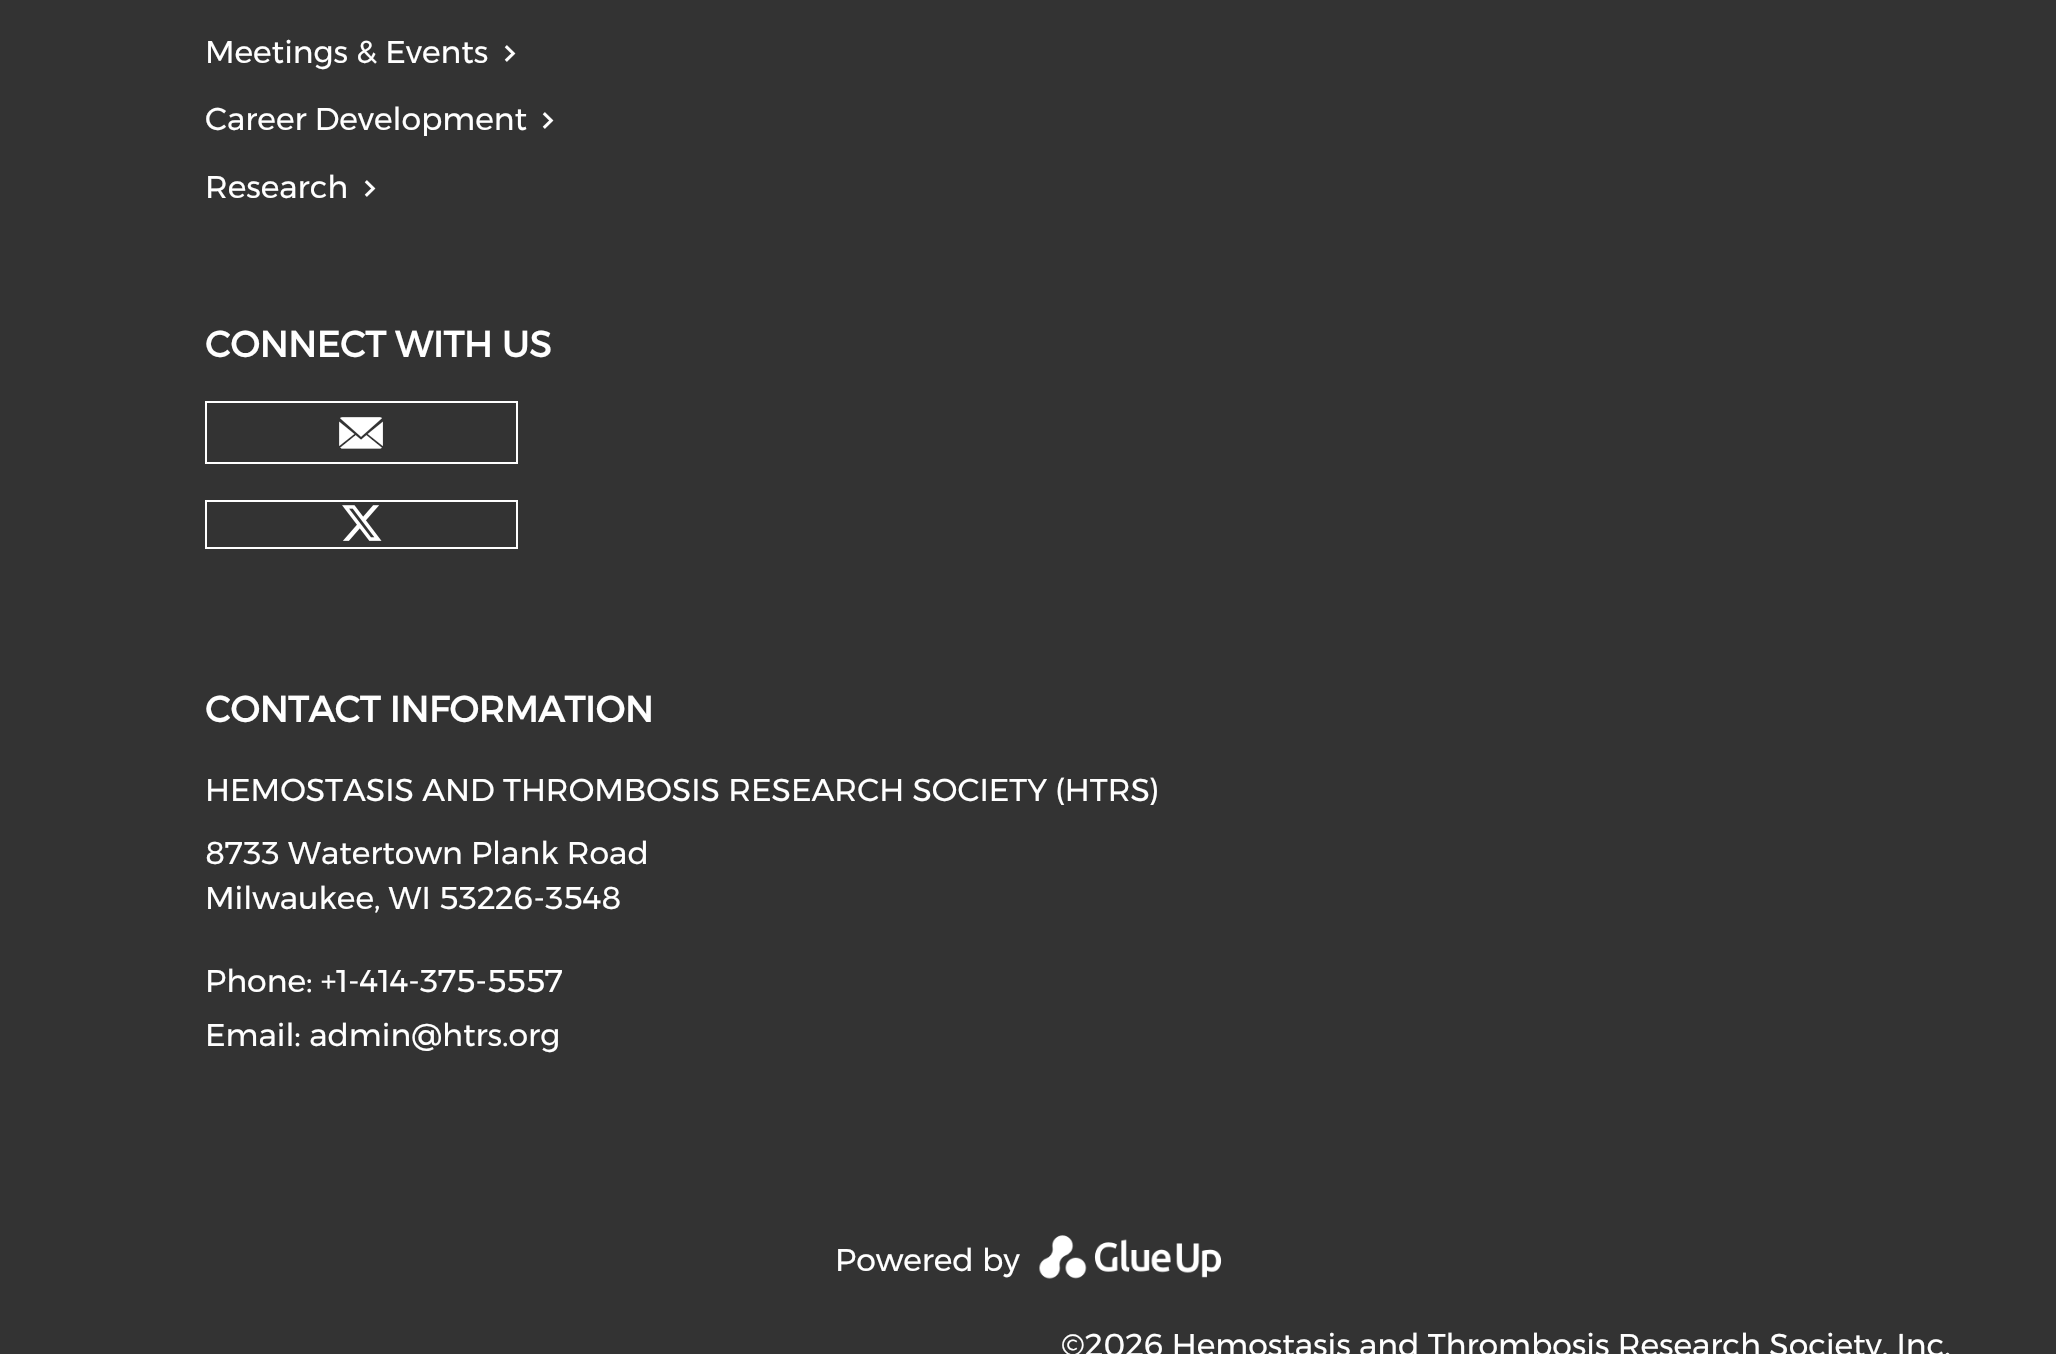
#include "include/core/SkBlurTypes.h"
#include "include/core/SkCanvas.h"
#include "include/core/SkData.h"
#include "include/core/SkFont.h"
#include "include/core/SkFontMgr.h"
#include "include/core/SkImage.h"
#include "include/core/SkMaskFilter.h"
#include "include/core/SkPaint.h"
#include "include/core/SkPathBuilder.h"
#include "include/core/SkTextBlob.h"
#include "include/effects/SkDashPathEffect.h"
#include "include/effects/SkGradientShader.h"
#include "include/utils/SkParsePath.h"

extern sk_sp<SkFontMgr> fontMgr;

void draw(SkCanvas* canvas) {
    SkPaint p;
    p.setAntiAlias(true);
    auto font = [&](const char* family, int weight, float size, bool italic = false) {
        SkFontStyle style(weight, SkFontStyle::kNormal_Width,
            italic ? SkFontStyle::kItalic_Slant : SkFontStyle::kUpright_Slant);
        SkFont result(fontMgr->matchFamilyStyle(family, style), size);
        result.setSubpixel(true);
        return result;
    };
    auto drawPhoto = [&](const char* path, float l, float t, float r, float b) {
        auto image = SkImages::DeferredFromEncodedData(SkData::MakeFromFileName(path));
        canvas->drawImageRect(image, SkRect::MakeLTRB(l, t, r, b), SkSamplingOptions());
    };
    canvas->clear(0xFF333333);
    auto font1 = font("Montserrat", 400, 31.5f);
    p.setColor(0xFFFFFFFF);
    canvas->drawString("Meetings & Events", 205, 63, font1, p);
    auto font2 = font("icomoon", 400, 35);
    canvas->save();
    canvas->rotate(-90, 525, 71);
    canvas->drawString("9", 525, 71, font2, p);
    canvas->restore();
    canvas->drawString("Career Development", 205, 130, font1, p);
    canvas->save();
    canvas->rotate(-90, 563, 138);
    canvas->drawString("9", 563, 138, font2, p);
    canvas->restore();
    canvas->drawString("Research", 205, 198, font1, p);
    canvas->save();
    canvas->rotate(-90, 385, 206);
    canvas->drawString("9", 385, 206, font2, p);
    canvas->restore();
    auto font3 = font("Montserrat", 700, 36);
    canvas->drawString("CONNECT WITH US", 205, 357, font3, p);
    p.setStyle(SkPaint::kStroke_Style);
    p.setStrokeWidth(2);
    canvas->drawRect(SkRect::MakeLTRB(206, 402, 517, 463), p);
    auto font4 = font("icomoon", 400, 58);
    p.setStyle(SkPaint::kFill_Style);
    canvas->drawString("8", 332, 458, font4, p);
    p.setStyle(SkPaint::kStroke_Style);
    canvas->drawRect(SkRect::MakeLTRB(206, 501, 517, 548), p);
    drawPhoto("media/1.png", 342, 505, 382, 541);
    p.setStyle(SkPaint::kFill_Style);
    canvas->drawString("CONTACT INFORMATION", 205, 722, font3, p);
    {
        const struct { const char* s; float x, y; } items[] = {
            {"HEMOSTASIS AND THROMBOSIS RESEARCH SOCIETY (HTRS)", 205, 801},
            {"8733 Watertown Plank Road", 205, 864},
            {"Milwaukee, WI 53226-3548", 205, 909},
            {"Phone: +1-414-375-5557", 205, 992},
            {"Email: admin@htrs.org", 205, 1046},
            {"Powered by", 835, 1271},
        };
        for (auto [s, x, y] : items) {
            canvas->drawString(s, x, y, font1, p);
        }
    }
    drawPhoto("media/2.png", 1039, 1235, 1222, 1279);
    canvas->drawString("©2026 Hemostasis and Thrombosis Research Society, Inc.", 1061, 1356, font1, p);
}
